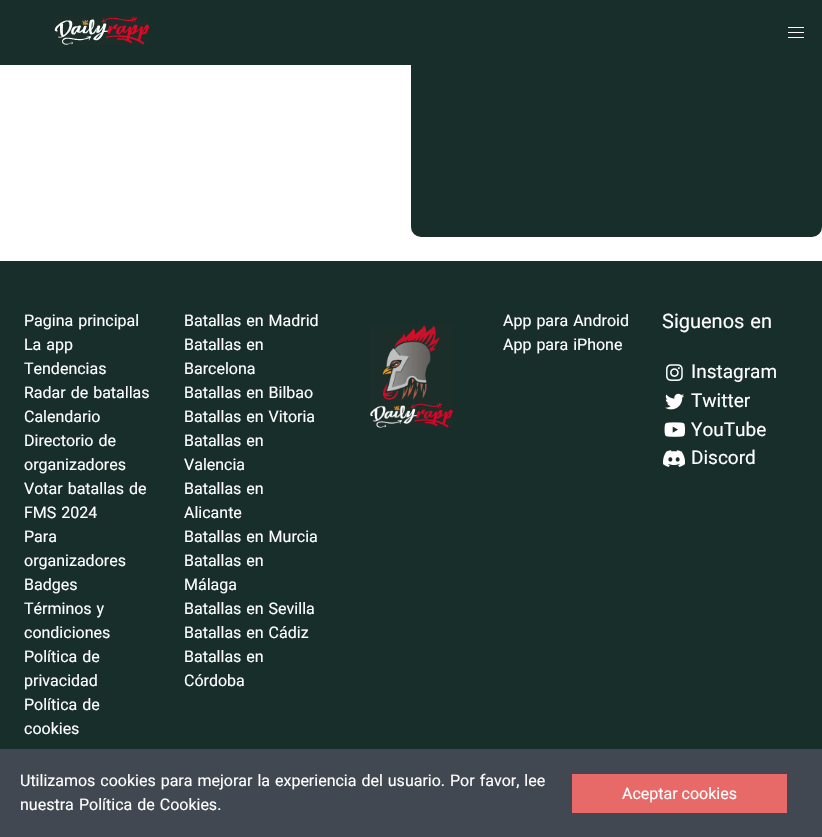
#include "include/core/SkBlurTypes.h"
#include "include/core/SkCanvas.h"
#include "include/core/SkData.h"
#include "include/core/SkFont.h"
#include "include/core/SkFontMgr.h"
#include "include/core/SkImage.h"
#include "include/core/SkMaskFilter.h"
#include "include/core/SkPaint.h"
#include "include/core/SkPathBuilder.h"
#include "include/core/SkTextBlob.h"
#include "include/effects/SkDashPathEffect.h"
#include "include/effects/SkGradientShader.h"
#include "include/utils/SkParsePath.h"

extern sk_sp<SkFontMgr> fontMgr;

void draw(SkCanvas* canvas) {
    SkPaint p;
    p.setAntiAlias(true);
    auto font = [&](const char* family, int weight, float size, bool italic = false) {
        SkFontStyle style(weight, SkFontStyle::kNormal_Width,
            italic ? SkFontStyle::kItalic_Slant : SkFontStyle::kUpright_Slant);
        SkFont result(fontMgr->matchFamilyStyle(family, style), size);
        result.setSubpixel(true);
        return result;
    };
    auto drawTracked = [&](const char* s, float x, float y, const SkFont& font, const SkPaint& ink, float letter, float word) {
        std::vector<SkGlyphID> glyphs(font.countText(s, strlen(s), SkTextEncoding::kUTF8));
        std::vector<float> xs(glyphs.size());
        font.textToGlyphs(s, strlen(s), SkTextEncoding::kUTF8, glyphs);
        font.getXPos(glyphs, xs, x);
        float extra = 0;
        for (size_t i = 0; i < glyphs.size(); i++) {
            xs[i] += extra;
            extra += letter + word * (glyphs[i] == font.unicharToGlyph(' '));
        }
        canvas->drawTextBlob(SkTextBlob::MakeFromPosHGlyphs(glyphs, xs, y, font), 0, 0, ink);
    };
    auto drawPhoto = [&](const char* path, float l, float t, float r, float b) {
        auto image = SkImages::DeferredFromEncodedData(SkData::MakeFromFileName(path));
        canvas->drawImageRect(image, SkRect::MakeLTRB(l, t, r, b), SkSamplingOptions());
    };
    canvas->clear(0xFFFFFFFF);
    p.setColor(0xFF182E2A);
    canvas->drawRoundRect(SkRect::MakeLTRB(411, -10, 822, 237), 10, 10, p);
    canvas->drawRect(SkRect::MakeLTRB(0, 0, 411, 65), p);
    drawPhoto("media/1.png", 54, 16, 149, 45);
    {
        const struct { float l, t, r, b; SkColor color; } items[] = {
            {788, 27, 804, 28, 0xFFFFFFFF},
            {788, 32, 804, 33, 0xFFFFFFFF},
            {788, 37, 804, 38, 0xFFFFFFFF},
            {0, 261, 822, 749, 0xFF182E2A},
        };
        for (auto [l, t, r, b, color] : items) {
            p.setColor(color);
            canvas->drawRect(SkRect::MakeLTRB(l, t, r, b), p);
        }
    }
    auto font1 = font("Roboto", 400, 16);
    p.setColor(0xFFFFFFFF);
    drawTracked("Pagina principal", 24, 326, font1, p, 0, 1);
    drawTracked("La app", 24, 350, font1, p, 0, 1);
    canvas->drawString("Tendencias", 24, 374, font1, p);
    drawTracked("Radar de batallas", 24, 398, font1, p, 0, 1);
    canvas->drawString("Calendario", 24, 422, font1, p);
    drawTracked("Directorio de", 24, 446, font1, p, 0, 1);
    canvas->drawString("organizadores", 24, 470, font1, p);
    drawTracked("Votar batallas de", 24, 494, font1, p, 0, 1);
    drawTracked("FMS 2024", 24, 518, font1, p, 0, 1);
    {
        const struct { const char* s; float x, y; } items[] = {
            {"Para", 24, 542},
            {"organizadores", 24, 566},
            {"Badges", 24, 590},
        };
        for (auto [s, x, y] : items) {
            canvas->drawString(s, x, y, font1, p);
        }
    }
    drawTracked("Términos y", 24, 614, font1, p, 0, 1);
    canvas->drawString("condiciones", 24, 638, font1, p);
    drawTracked("Política de", 24, 662, font1, p, 0, 1);
    canvas->drawString("privacidad", 24, 686, font1, p);
    drawTracked("Política de", 24, 710, font1, p, 0, 1);
    canvas->drawString("cookies", 24, 734, font1, p);
    drawTracked("Batallas en Madrid", 184, 326, font1, p, 0, 1);
    drawTracked("Batallas en", 184, 350, font1, p, 0, 1);
    canvas->drawString("Barcelona", 184, 374, font1, p);
    {
        const struct { const char* s; float x, y; } items[] = {
            {"Batallas en Bilbao", 184, 398},
            {"Batallas en Vitoria", 184, 422},
            {"Batallas en", 184, 446},
        };
        for (auto [s, x, y] : items) {
            drawTracked(s, x, y, font1, p, 0, 1);
        }
    }
    canvas->drawString("Valencia", 184, 470, font1, p);
    drawTracked("Batallas en", 184, 494, font1, p, 0, 1);
    canvas->drawString("Alicante", 184, 518, font1, p);
    drawTracked("Batallas en Murcia", 184, 542, font1, p, 0, 1);
    drawTracked("Batallas en", 184, 566, font1, p, 0, 1);
    canvas->drawString("Málaga", 184, 590, font1, p);
    {
        const struct { const char* s; float x, y; } items[] = {
            {"Batallas en Sevilla", 184, 614},
            {"Batallas en Cádiz", 184, 638},
            {"Batallas en", 184, 662},
        };
        for (auto [s, x, y] : items) {
            drawTracked(s, x, y, font1, p, 0, 1);
        }
    }
    canvas->drawString("Córdoba", 184, 686, font1, p);
    drawPhoto("media/2.png", 370, 325, 453, 428);
    drawTracked("App para Android", 503, 326, font1, p, 0, 1);
    drawTracked("App para iPhone", 503, 350, font1, p, 0, 1);
    auto font2 = font("Roboto", 400, 20);
    drawTracked("Siguenos en", 662, 328, font2, p, 0, 1);
    drawPhoto("media/3.png", 666, 364, 683, 381);
    auto font3 = font("Roboto", 400, 19);
    canvas->drawString("Instagram", 691, 378, font3, p);
    drawPhoto("media/4.png", 665, 393, 684, 410);
    canvas->drawString("Twitter", 691, 407, font3, p);
    drawPhoto("media/5.png", 664, 422, 686, 437);
    canvas->drawString("YouTube", 691, 436, font3, p);
    drawPhoto("media/6.png", 663, 450, 685, 467);
    canvas->drawString("Discord", 691, 464, font3, p);
    p.setColor(0xFF424851);
    canvas->drawRect(SkRect::MakeLTRB(0, 749, 822, 837), p);
    p.setColor(0xFFFFFFFF);
    drawTracked("Utilizamos cookies para mejorar la experiencia del usuario. Por favor, lee", 20, 786, font1, p, 0, 1);
    canvas->drawString("nuestra", 20, 810, font1, p);
    drawTracked("Política de Cookies.", 79, 810, font1, p, 0, 1);
    p.setColor(0xFFE76A68);
    canvas->drawRect(SkRect::MakeLTRB(572, 774, 787, 813), p);
    p.setColor(0xFFFFFFFF);
    canvas->drawString("Aceptar cookies", 622, 799, font1, p);
}
